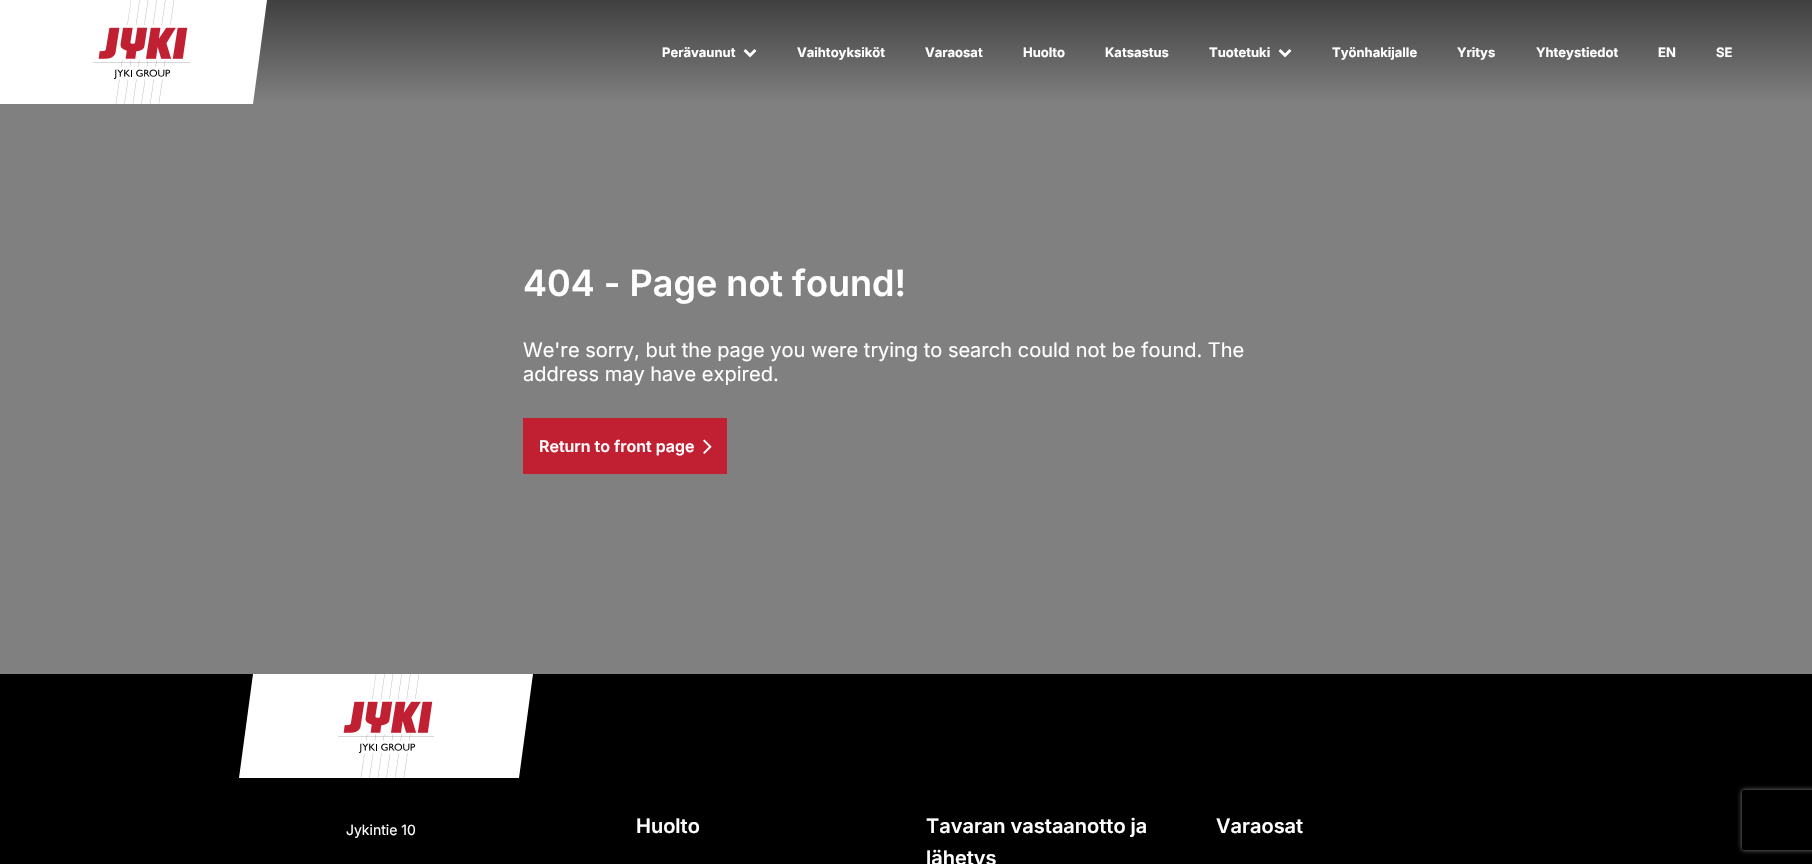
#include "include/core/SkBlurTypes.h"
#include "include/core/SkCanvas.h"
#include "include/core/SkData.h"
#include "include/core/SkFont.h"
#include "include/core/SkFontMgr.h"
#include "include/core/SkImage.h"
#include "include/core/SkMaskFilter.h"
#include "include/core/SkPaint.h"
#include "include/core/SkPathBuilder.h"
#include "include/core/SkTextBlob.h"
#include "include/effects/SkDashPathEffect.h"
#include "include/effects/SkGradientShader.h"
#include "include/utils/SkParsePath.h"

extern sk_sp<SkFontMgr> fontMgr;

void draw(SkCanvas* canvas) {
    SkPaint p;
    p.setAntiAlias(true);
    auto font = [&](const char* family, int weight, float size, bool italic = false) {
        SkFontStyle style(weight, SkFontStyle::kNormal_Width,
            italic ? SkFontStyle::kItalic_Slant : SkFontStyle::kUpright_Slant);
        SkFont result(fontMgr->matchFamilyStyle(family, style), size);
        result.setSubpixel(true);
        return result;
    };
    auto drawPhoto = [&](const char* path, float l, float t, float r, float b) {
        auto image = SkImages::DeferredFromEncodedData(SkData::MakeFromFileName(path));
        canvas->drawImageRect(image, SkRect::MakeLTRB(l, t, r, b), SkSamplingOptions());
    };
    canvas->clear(0xFF808080);
    {
        const SkColor colors[] = {0xFF404040, 0xFF808080};
        const float stops[] = {0, 1};
        const SkPoint ends[] = {{906, 0}, {906, 104}};
        p.setShader(SkGradientShader::MakeLinear(ends, colors, stops, 2, SkTileMode::kClamp));
        p.setAlpha(255);
    }
    canvas->drawRect(SkRect::MakeLTRB(253, 0, 1812, 100), p);
    p.setShader(nullptr);
    p.setColor(0xFFFFFFFF);
    canvas->drawPath(SkPathBuilder().moveTo(-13, 0).lineTo(267, 0).lineTo(253, 104).lineTo(-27, 104).close().detach(), p);
    drawPhoto("media/1.png", 93, 0, 190, 104);
    auto font1 = font("Inter", 700, 13);
    canvas->drawString("Perävaunut", 662, 57, font1, p);
    drawPhoto("media/2.png", 743, 49, 757, 58);
    {
        const struct { const char* s; float x, y; } items[] = {
            {"Vaihtoyksiköt", 797, 57},
            {"Varaosat", 925, 57},
            {"Huolto", 1023, 57},
            {"Katsastus", 1105, 57},
            {"Tuotetuki", 1209, 57},
        };
        for (auto [s, x, y] : items) {
            canvas->drawString(s, x, y, font1, p);
        }
    }
    drawPhoto("media/2.png", 1278, 49, 1292, 58);
    {
        const struct { const char* s; float x, y; } items[] = {
            {"Työnhakijalle", 1332, 57},
            {"Yritys", 1457, 57},
            {"Yhteystiedot", 1536, 57},
            {"EN", 1658, 57},
            {"SE", 1716, 57},
        };
        for (auto [s, x, y] : items) {
            canvas->drawString(s, x, y, font1, p);
        }
    }
    auto font2 = font("Inter", 600, 36);
    canvas->drawString("404 - Page not found!", 523, 296, font2, p);
    auto font3 = font("Inter", 400, 20);
    canvas->drawString("We're sorry, but the page you were trying to search could not be found. The", 523, 357, font3, p);
    canvas->drawString("address may have expired.", 523, 381, font3, p);
    p.setColor(0xFFC12032);
    canvas->drawRect(SkRect::MakeLTRB(523, 418, 727, 474), p);
    auto font4 = font("Inter", 600, 16);
    p.setColor(0xFFFFFFFF);
    canvas->drawString("Return to front page", 539, 452, font4, p);
    drawPhoto("media/3.png", 703, 439, 712, 454);
    p.setColor(0xFF000000);
    canvas->drawRect(SkRect::MakeLTRB(0, 674, 1812, 864), p);
    p.setColor(0xFFFFFFFF);
    canvas->drawPath(SkPathBuilder().moveTo(253, 674).lineTo(533, 674).lineTo(519, 778).lineTo(239, 778).close().detach(), p);
    drawPhoto("media/4.png", 338, 674, 434, 778);
    auto font5 = font("Inter", 400, 14);
    canvas->drawString("Jykintie 10", 346, 835, font5, p);
    auto font6 = font("Inter", 600, 20);
    {
        const struct { const char* s; float x, y; } items[] = {
            {"Huolto", 636, 833},
            {"Tavaran vastaanotto ja", 926, 833},
            {"lähetys", 926, 865},
            {"Varaosat", 1216, 833},
        };
        for (auto [s, x, y] : items) {
            canvas->drawString(s, x, y, font6, p);
        }
    }
    canvas->save();
    canvas->clipPath(SkPathBuilder(SkPathFillType::kEvenOdd).moveTo(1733, 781).lineTo(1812, 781).lineTo(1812, 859).lineTo(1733, 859).close().moveTo(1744, 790).lineTo(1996, 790).cubicTo(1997, 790, 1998, 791, 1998, 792).lineTo(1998, 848).cubicTo(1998, 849, 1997, 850, 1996, 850).lineTo(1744, 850).cubicTo(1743, 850, 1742, 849, 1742, 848).lineTo(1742, 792).cubicTo(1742, 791, 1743, 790, 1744, 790).close().detach(), true);
    p.setColor(0xFF808080);
    p.setMaskFilter(SkMaskFilter::MakeBlur(kNormal_SkBlurStyle, 2.5f));
    canvas->drawRoundRect(SkRect::MakeLTRB(1742, 790, 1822, 850), 2, 2, p);
    p.setMaskFilter(nullptr);
    canvas->restore();
}
